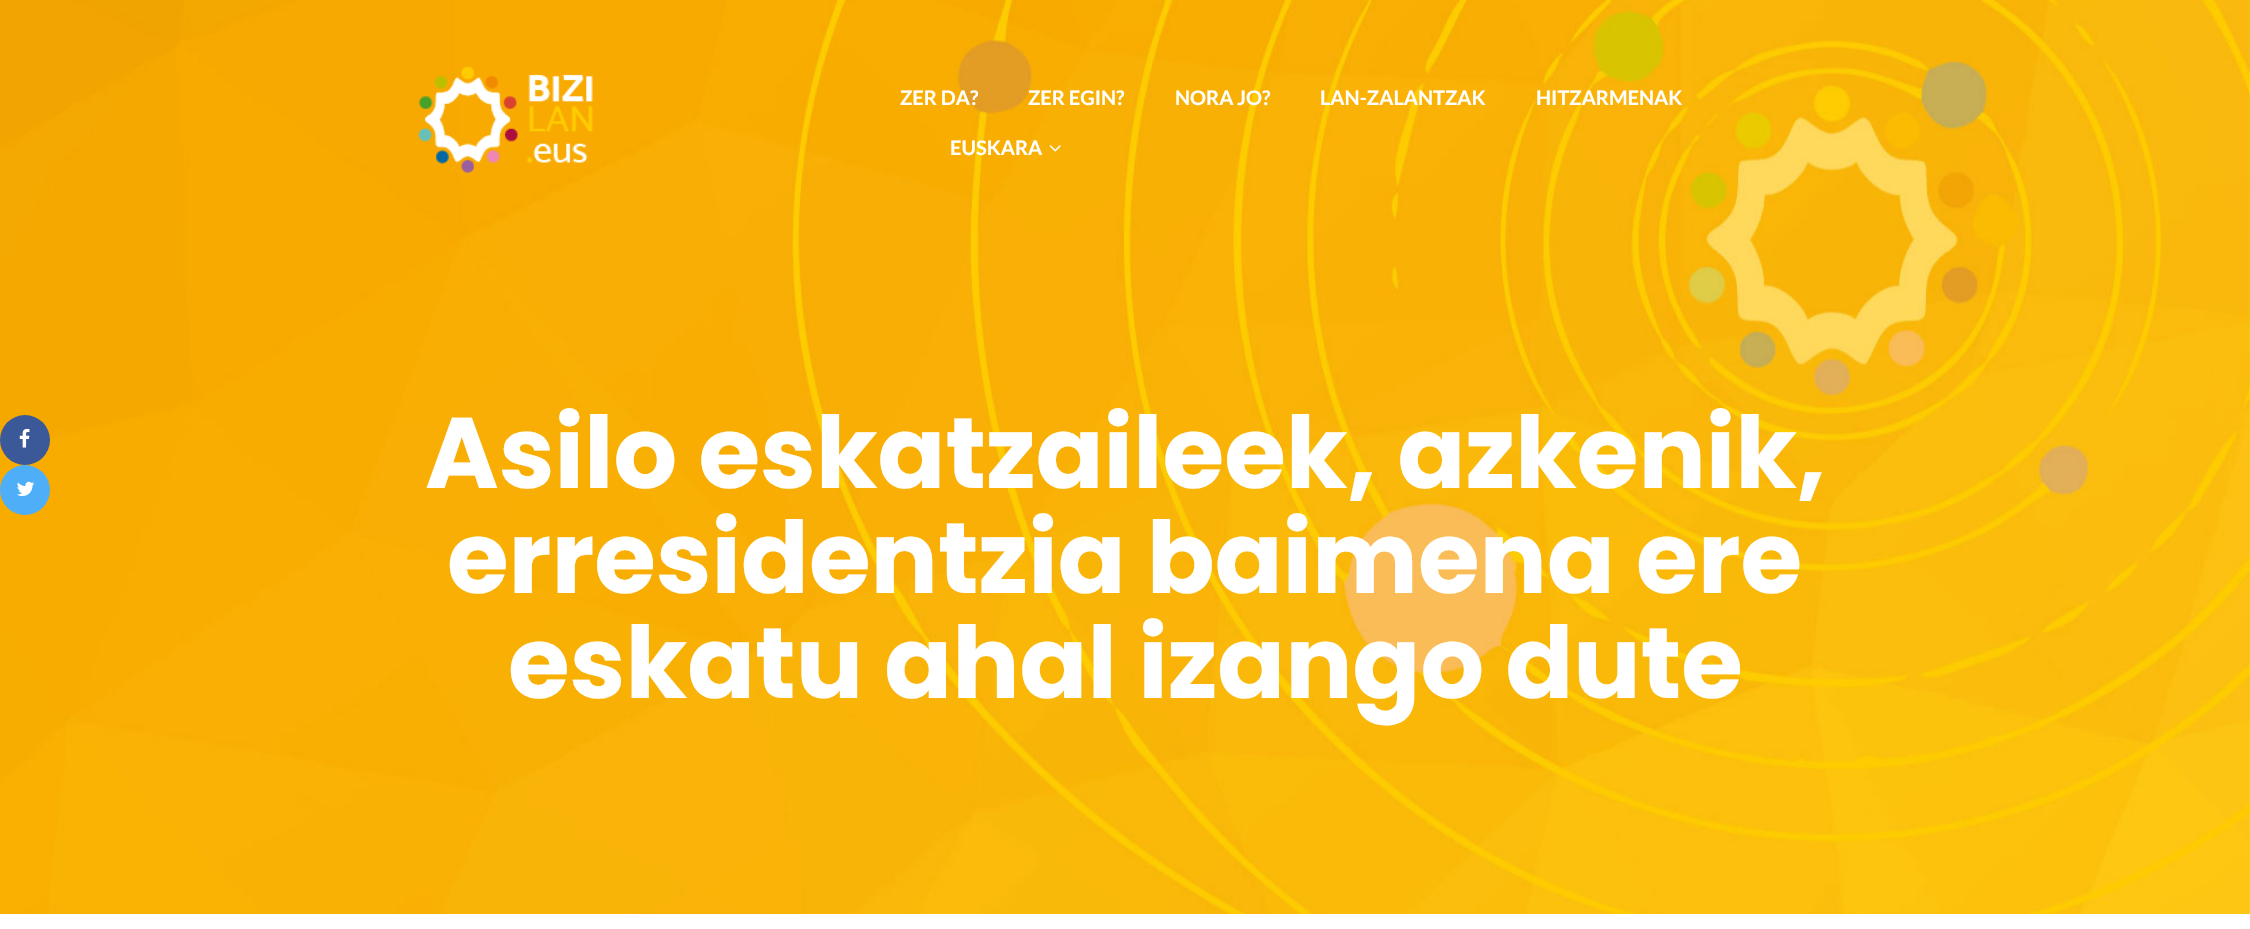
#include "include/core/SkBlurTypes.h"
#include "include/core/SkCanvas.h"
#include "include/core/SkData.h"
#include "include/core/SkFont.h"
#include "include/core/SkFontMgr.h"
#include "include/core/SkImage.h"
#include "include/core/SkMaskFilter.h"
#include "include/core/SkPaint.h"
#include "include/core/SkPathBuilder.h"
#include "include/core/SkTextBlob.h"
#include "include/effects/SkDashPathEffect.h"
#include "include/effects/SkGradientShader.h"
#include "include/utils/SkParsePath.h"

extern sk_sp<SkFontMgr> fontMgr;

void draw(SkCanvas* canvas) {
    SkPaint p;
    p.setAntiAlias(true);
    auto font = [&](const char* family, int weight, float size, bool italic = false) {
        SkFontStyle style(weight, SkFontStyle::kNormal_Width,
            italic ? SkFontStyle::kItalic_Slant : SkFontStyle::kUpright_Slant);
        SkFont result(fontMgr->matchFamilyStyle(family, style), size);
        result.setSubpixel(true);
        return result;
    };
    auto drawPhoto = [&](const char* path, float l, float t, float r, float b) {
        auto image = SkImages::DeferredFromEncodedData(SkData::MakeFromFileName(path));
        canvas->drawImageRect(image, SkRect::MakeLTRB(l, t, r, b), SkSamplingOptions());
    };
    canvas->clear(0xFFFFFFFF);
    drawPhoto("media/3.png", 0, 0, 2250, 914);
    p.setColor(0xFF3B5998);
    canvas->drawCircle(25, 440, 25, p);
    drawPhoto("media/1.png", 19, 428, 30, 448);
    p.setColor(0xFF4EAEF8);
    canvas->drawCircle(25, 490, 25, p);
    drawPhoto("media/2.png", 17, 481, 35, 497);
    drawPhoto("media/4.png", 418, 66, 593, 173);
    auto font1 = font("Lato", 700, 20);
    p.setColor(0xFFFFFFFF);
    {
        const struct { const char* s; float x, y; } items[] = {
            {"ZER DA?", 900, 105},
            {"ZER EGIN?", 1028, 105},
            {"NORA JO?", 1175, 105},
            {"LAN-ZALANTZAK", 1320, 105},
            {"HITZARMENAK", 1536, 105},
            {"EUSKARA", 950, 155},
        };
        for (auto [s, x, y] : items) {
            canvas->drawString(s, x, y, font1, p);
        }
    }
    drawPhoto("media/5.png", 1049, 145, 1061, 152);
    auto font2 = font("Poppins", 700, 100);
    {
        const struct { const char* s; float x, y; } items[] = {
            {"Asilo eskatzaileek, azkenik,", 425, 488},
            {"erresidentzia baimena ere", 447, 593},
            {"eskatu ahal izango dute", 508, 698},
        };
        for (auto [s, x, y] : items) {
            canvas->drawString(s, x, y, font2, p);
        }
    }
}
